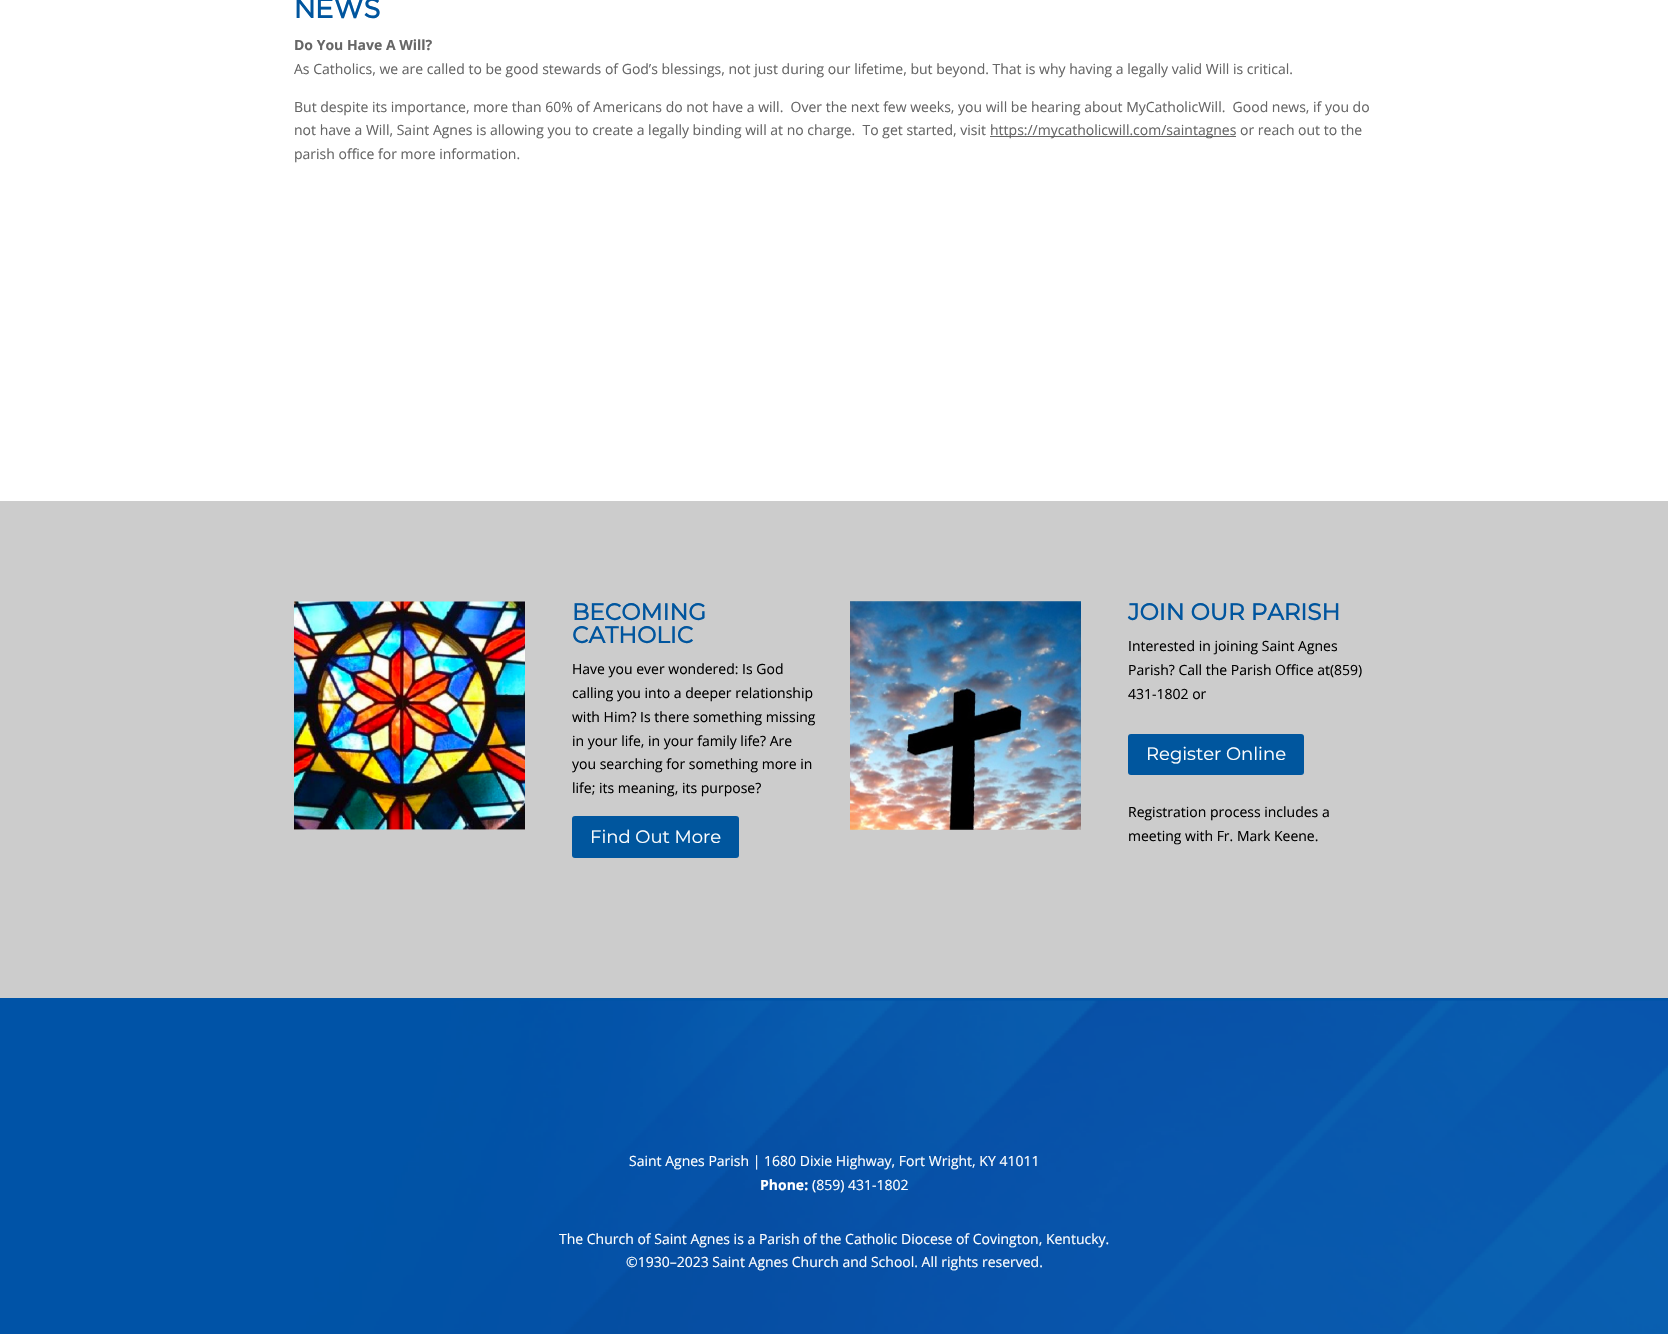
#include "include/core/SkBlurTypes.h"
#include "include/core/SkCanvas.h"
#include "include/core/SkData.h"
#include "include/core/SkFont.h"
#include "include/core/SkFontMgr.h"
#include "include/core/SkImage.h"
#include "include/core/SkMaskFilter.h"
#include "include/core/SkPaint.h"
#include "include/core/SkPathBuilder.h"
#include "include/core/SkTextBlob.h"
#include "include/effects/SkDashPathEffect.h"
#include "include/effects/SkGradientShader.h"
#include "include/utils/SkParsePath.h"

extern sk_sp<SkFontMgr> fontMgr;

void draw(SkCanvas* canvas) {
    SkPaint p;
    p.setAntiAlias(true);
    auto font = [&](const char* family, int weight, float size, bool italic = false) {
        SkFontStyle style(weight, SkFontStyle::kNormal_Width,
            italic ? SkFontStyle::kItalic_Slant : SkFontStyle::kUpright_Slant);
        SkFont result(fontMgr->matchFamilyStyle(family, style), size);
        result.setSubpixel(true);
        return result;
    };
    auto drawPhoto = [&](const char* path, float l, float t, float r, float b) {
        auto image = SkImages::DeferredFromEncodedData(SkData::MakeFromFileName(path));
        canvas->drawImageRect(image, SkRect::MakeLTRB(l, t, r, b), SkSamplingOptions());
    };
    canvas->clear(0xFFFFFFFF);
    auto font1 = font("Gotham", 700, 27);
    p.setColor(0xFF00559E);
    canvas->drawString("NEWS", 294, 18, font1, p);
    auto font2 = font("Open Sans", 700, 14);
    p.setColor(0xFF666666);
    canvas->drawString("Do You Have A Will?", 294, 50, font2, p);
    auto font3 = font("Open Sans", 400, 14);
    {
        const struct { const char* s; float x, y; } items[] = {
            {"As Catholics, we are called to be good stewards of God’s blessings, not just during our lifetime, but beyond. That is why having a legally valid Will is critical.", 294, 74},
            {"But despite its importance, more than 60% of Americans do not have a will.  Over the next few weeks, you will be hearing about MyCatholicWill.  Good news, if you do", 294, 112},
            {"not have a Will, Saint Agnes is allowing you to create a legally binding will at no charge.  To get started, visit", 294, 135},
        };
        for (auto [s, x, y] : items) {
            canvas->drawString(s, x, y, font3, p);
        }
    }
    canvas->drawRect(SkRect::MakeLTRB(990, 136, 1236, 137), p);
    canvas->drawString("https://mycatholicwill.com/saintagnes or reach out to the", 990, 135, font3, p);
    canvas->drawString("parish office for more information.", 294, 159, font3, p);
    p.setColor(0xFFCCCCCC);
    canvas->drawRect(SkRect::MakeLTRB(0, 501, 1668, 998), p);
    drawPhoto("media/1.png", 294, 601, 525, 830);
    auto font4 = font("Montserrat", 700, 23);
    p.setColor(0xFF00559E);
    canvas->drawString("BECOMING", 572, 620, font4, p);
    canvas->drawString("CATHOLIC", 572, 643, font4, p);
    p.setColor(0xFF000000);
    {
        const struct { const char* s; float x, y; } items[] = {
            {"Have you ever wondered: Is God", 572, 674},
            {"calling you into a deeper relationship", 572, 698},
            {"with Him? Is there something missing", 572, 722},
            {"in your life, in your family life? Are", 572, 746},
            {"you searching for something more in", 572, 769},
            {"life; its meaning, its purpose?", 572, 793},
        };
        for (auto [s, x, y] : items) {
            canvas->drawString(s, x, y, font3, p);
        }
    }
    p.setColor(0xFF00569E);
    canvas->drawRoundRect(SkRect::MakeLTRB(572, 816, 739, 858), 3, 3, p);
    auto font5 = font("Montserrat", 400, 18);
    p.setColor(0xFFFFFFFF);
    canvas->drawString("Find Out More", 590, 843, font5, p);
    drawPhoto("media/2.png", 850, 601, 1081, 830);
    p.setColor(0xFF00559E);
    canvas->drawString("JOIN OUR PARISH", 1128, 620, font4, p);
    p.setColor(0xFF000000);
    {
        const struct { const char* s; float x, y; } items[] = {
            {"Interested in joining Saint Agnes", 1128, 651},
            {"Parish? Call the Parish Office at(859)", 1128, 675},
            {"431-1802 or", 1128, 699},
        };
        for (auto [s, x, y] : items) {
            canvas->drawString(s, x, y, font3, p);
        }
    }
    p.setColor(0xFF00569E);
    canvas->drawRoundRect(SkRect::MakeLTRB(1128, 734, 1304, 775), 3, 3, p);
    p.setColor(0xFFFFFFFF);
    canvas->drawString("Register Online", 1146, 760, font5, p);
    p.setColor(0xFF000000);
    canvas->drawString("Registration process includes a", 1128, 817, font3, p);
    canvas->drawString("meeting with Fr. Mark Keene.", 1128, 841, font3, p);
    drawPhoto("media/3.png", 0, 998, 1668, 1334);
    p.setColor(0xFFFFFFFF);
    canvas->drawString("Saint Agnes Parish | 1680 Dixie Highway, Fort Wright, KY 41011", 629, 1166, font3, p);
    canvas->drawString("Phone:", 760, 1190, font2, p);
    {
        const struct { const char* s; float x, y; } items[] = {
            {"(859) 431-1802", 812, 1190},
            {"The Church of Saint Agnes is a Parish of the Catholic Diocese of Covington, Kentucky.", 559, 1244},
            {"©1930–2023 Saint Agnes Church and School. All rights reserved.", 626, 1267},
        };
        for (auto [s, x, y] : items) {
            canvas->drawString(s, x, y, font3, p);
        }
    }
}
